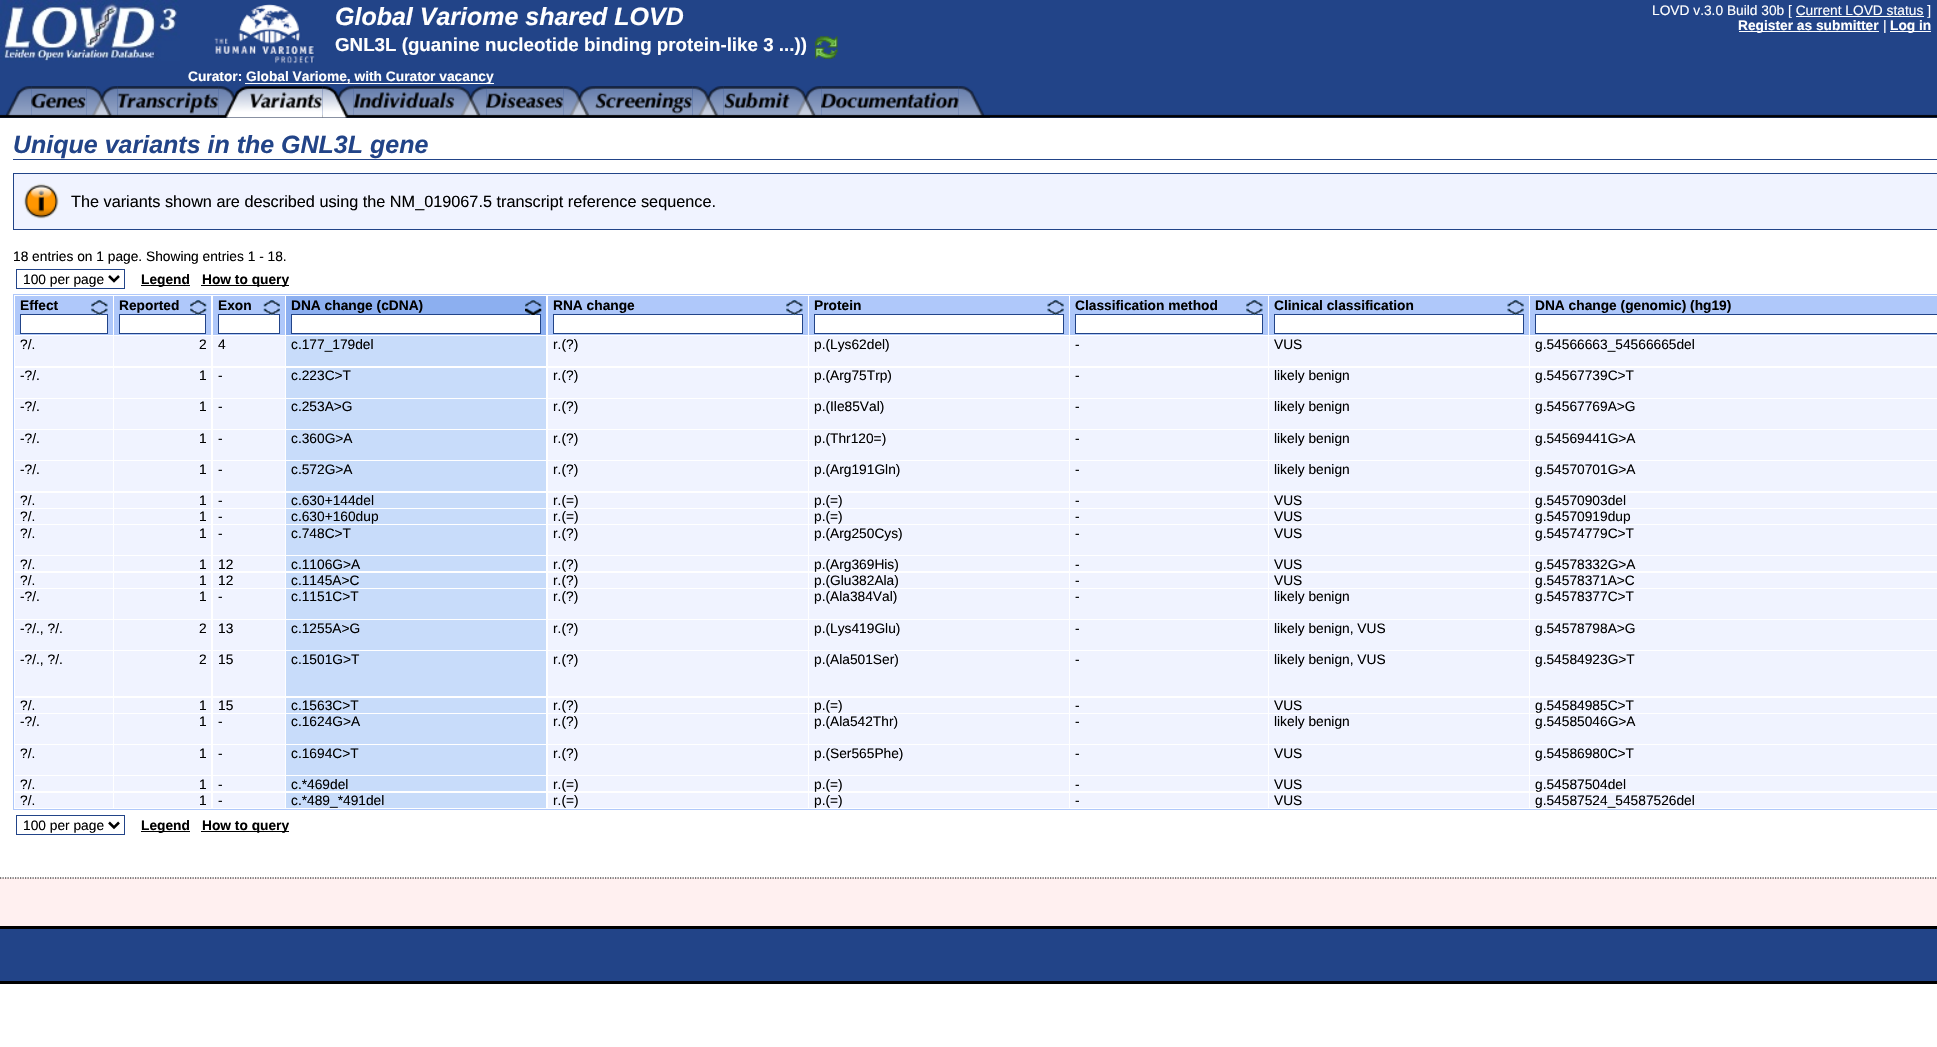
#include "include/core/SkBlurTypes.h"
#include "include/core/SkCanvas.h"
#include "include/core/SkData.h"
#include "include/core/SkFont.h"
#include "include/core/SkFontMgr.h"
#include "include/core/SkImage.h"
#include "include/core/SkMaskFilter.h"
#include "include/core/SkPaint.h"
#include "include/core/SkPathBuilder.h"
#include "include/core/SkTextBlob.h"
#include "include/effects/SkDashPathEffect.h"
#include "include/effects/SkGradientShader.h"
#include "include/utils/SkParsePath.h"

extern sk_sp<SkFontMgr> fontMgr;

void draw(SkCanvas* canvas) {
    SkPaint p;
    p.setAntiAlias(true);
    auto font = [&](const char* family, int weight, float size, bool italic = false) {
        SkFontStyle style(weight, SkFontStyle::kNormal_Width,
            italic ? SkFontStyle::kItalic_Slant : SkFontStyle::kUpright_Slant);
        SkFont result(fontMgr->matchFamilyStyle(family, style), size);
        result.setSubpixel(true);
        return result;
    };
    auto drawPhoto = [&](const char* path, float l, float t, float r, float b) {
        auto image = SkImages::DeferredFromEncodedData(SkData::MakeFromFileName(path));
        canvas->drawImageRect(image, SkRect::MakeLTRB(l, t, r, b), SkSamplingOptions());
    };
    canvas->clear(0xFFFFFFFF);
    p.setColor(0xFF224488);
    canvas->drawRect(SkRect::MakeLTRB(0, 0, 1937, 69), p);
    drawPhoto("media/1.png", 0, 0, 180, 61);
    drawPhoto("media/2.png", 214, 4, 315, 64);
    auto font1 = font("Liberation Sans", 700, 25, true);
    p.setColor(0xFFFFFFFF);
    canvas->drawString("Global Variome shared LOVD", 335, 25, font1, p);
    auto font2 = font("Liberation Sans", 700, 18.75f);
    canvas->drawString("GNL3L (guanine nucleotide binding protein-like 3 ...))", 335, 51, font2, p);
    drawPhoto("media/3.png", 814, 36, 838, 59);
    auto font3 = font("Liberation Sans", 400, 13.75f);
    canvas->drawString("LOVD v.3.0 Build 30b [ Current LOVD status ]", 1652, 15, font3, p);
    canvas->drawRect(SkRect::MakeLTRB(1796, 16, 1924, 17), p);
    canvas->drawRect(SkRect::MakeLTRB(1739, 31, 1879, 32), p);
    auto font4 = font("Liberation Sans", 700, 13.75f);
    canvas->drawString("Register as submitter", 1738, 30, font4, p);
    canvas->drawString("|", 1883, 30, font3, p);
    canvas->drawRect(SkRect::MakeLTRB(1890, 31, 1931, 32), p);
    canvas->drawString("Log in", 1890, 30, font4, p);
    p.setColor(0xFF224488);
    canvas->drawRect(SkRect::MakeLTRB(0, 69, 1937, 118), p);
    p.setColor(0xFFFFFFFF);
    canvas->drawString("Curator:", 188, 81, font4, p);
    canvas->drawRect(SkRect::MakeLTRB(245, 83, 494, 84), p);
    canvas->drawString("Global Variome, with Curator vacancy", 246, 81, font4, p);
    drawPhoto("media/4.png", 0, 114, 1937, 118);
    drawPhoto("media/5.png", 0, 86, 32, 118);
    drawPhoto("media/6.png", 31, 86, 87, 118);
    drawPhoto("media/7.png", 86, 86, 118, 118);
    drawPhoto("media/8.png", 117, 86, 219, 118);
    drawPhoto("media/9.png", 218, 86, 250, 118);
    drawPhoto("media/10.png", 250, 86, 323, 118);
    drawPhoto("media/11.png", 322, 86, 354, 118);
    drawPhoto("media/12.png", 353, 86, 455, 118);
    drawPhoto("media/13.png", 455, 86, 487, 118);
    drawPhoto("media/14.png", 486, 86, 564, 118);
    drawPhoto("media/15.png", 563, 86, 595, 118);
    drawPhoto("media/16.png", 595, 86, 693, 118);
    drawPhoto("media/17.png", 692, 86, 724, 118);
    drawPhoto("media/18.png", 723, 86, 790, 118);
    drawPhoto("media/19.png", 790, 86, 822, 118);
    drawPhoto("media/20.png", 821, 86, 959, 118);
    drawPhoto("media/21.png", 958, 86, 990, 118);
    p.setColor(0xFF224488);
    canvas->drawRect(SkRect::MakeLTRB(13, 159, 1937, 160), p);
    canvas->drawString("Unique variants in the GNL3L gene", 13, 153, font1, p);
    p.setColor(0xFFF0F3FF);
    canvas->drawRect(SkRect::MakeLTRB(13.5f, 173.5f, 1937.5f, 229.5f), p);
    p.setStyle(SkPaint::kStroke_Style);
    p.setStrokeWidth(1);
    p.setColor(0xFF224488);
    canvas->drawRect(SkRect::MakeLTRB(13.5f, 173.5f, 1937.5f, 229.5f), p);
    drawPhoto("media/22.png", 23, 183, 59, 219);
    auto font5 = font("Liberation Sans", 400, 16.25f);
    p.setStyle(SkPaint::kFill_Style);
    p.setColor(0xFF000000);
    canvas->drawString("The variants shown are described using the NM_019067.5 transcript reference sequence.", 71, 207, font5, p);
    canvas->drawString("18 entries on 1 page. Showing entries 1 - 18.", 13, 261, font3, p);
    p.setStyle(SkPaint::kStroke_Style);
    p.setColor(0xFF224488);
    canvas->drawRect(SkRect::MakeLTRB(16.5f, 269.5f, 124.5f, 288.5f), p);
    p.setStrokeWidth(2.5f);
    p.setColor(0xFF000000);
    canvas->drawPath(SkPathBuilder().moveTo(109, 276).lineTo(114, 281).lineTo(119, 276).detach(), p);
    p.setStyle(SkPaint::kFill_Style);
    canvas->drawString("100 per page", 23, 284, font3, p);
    canvas->drawRect(SkRect::MakeLTRB(141, 285, 190, 286), p);
    canvas->drawString("Legend", 141, 284, font4, p);
    canvas->drawRect(SkRect::MakeLTRB(201, 285, 289, 286), p);
    canvas->drawString("How to query", 202, 284, font4, p);
    p.setStyle(SkPaint::kStroke_Style);
    p.setStrokeWidth(1);
    p.setColor(0xFFAFC8FA);
    canvas->drawRect(SkRect::MakeLTRB(13.5f, 294.5f, 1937.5f, 809.5f), p);
    p.setStyle(SkPaint::kFill_Style);
    canvas->drawRect(SkRect::MakeLTRB(15, 296, 113, 335), p);
    p.setColor(0xFF000000);
    canvas->drawString("Effect", 20, 310, font4, p);
    p.setColor(0xFFFFFFFF);
    canvas->drawRect(SkRect::MakeLTRB(20.5f, 314.5f, 107.5f, 333.5f), p);
    p.setStyle(SkPaint::kStroke_Style);
    p.setColor(0xFF224488);
    canvas->drawRect(SkRect::MakeLTRB(20.5f, 314.5f, 107.5f, 333.5f), p);
    drawPhoto("media/23.png", 91, 300, 108, 315);
    p.setStyle(SkPaint::kFill_Style);
    p.setColor(0xFFAFC8FA);
    canvas->drawRect(SkRect::MakeLTRB(114, 296, 211, 335), p);
    p.setColor(0xFF000000);
    canvas->drawString("Reported", 119, 310, font4, p);
    p.setColor(0xFFFFFFFF);
    canvas->drawRect(SkRect::MakeLTRB(119.5f, 314.5f, 205.5f, 333.5f), p);
    p.setStyle(SkPaint::kStroke_Style);
    p.setColor(0xFF224488);
    canvas->drawRect(SkRect::MakeLTRB(119.5f, 314.5f, 205.5f, 333.5f), p);
    drawPhoto("media/24.png", 190, 300, 207, 315);
    p.setStyle(SkPaint::kFill_Style);
    p.setColor(0xFFAFC8FA);
    canvas->drawRect(SkRect::MakeLTRB(213, 296, 285, 335), p);
    p.setColor(0xFF000000);
    canvas->drawString("Exon", 218, 310, font4, p);
    p.setColor(0xFFFFFFFF);
    canvas->drawRect(SkRect::MakeLTRB(218.5f, 314.5f, 279.5f, 333.5f), p);
    p.setStyle(SkPaint::kStroke_Style);
    p.setColor(0xFF224488);
    canvas->drawRect(SkRect::MakeLTRB(218.5f, 314.5f, 279.5f, 333.5f), p);
    drawPhoto("media/25.png", 263, 300, 280, 315);
    p.setStyle(SkPaint::kFill_Style);
    p.setColor(0xFF8CAFF0);
    canvas->drawRect(SkRect::MakeLTRB(286, 296, 546, 335), p);
    p.setColor(0xFF000000);
    canvas->drawString("DNA change (cDNA)", 291, 310, font4, p);
    p.setColor(0xFFFFFFFF);
    canvas->drawRect(SkRect::MakeLTRB(291.5f, 314.5f, 540.5f, 333.5f), p);
    p.setStyle(SkPaint::kStroke_Style);
    p.setColor(0xFF224488);
    canvas->drawRect(SkRect::MakeLTRB(291.5f, 314.5f, 540.5f, 333.5f), p);
    drawPhoto("media/26.png", 525, 300, 542, 315);
    p.setStyle(SkPaint::kFill_Style);
    p.setColor(0xFFAFC8FA);
    canvas->drawRect(SkRect::MakeLTRB(548, 296, 808, 335), p);
    p.setColor(0xFF000000);
    canvas->drawString("RNA change", 553, 310, font4, p);
    p.setColor(0xFFFFFFFF);
    canvas->drawRect(SkRect::MakeLTRB(553.5f, 314.5f, 802.5f, 333.5f), p);
    p.setStyle(SkPaint::kStroke_Style);
    p.setColor(0xFF224488);
    canvas->drawRect(SkRect::MakeLTRB(553.5f, 314.5f, 802.5f, 333.5f), p);
    drawPhoto("media/23.png", 786, 300, 803, 315);
    p.setStyle(SkPaint::kFill_Style);
    p.setColor(0xFFAFC8FA);
    canvas->drawRect(SkRect::MakeLTRB(809, 296, 1069, 335), p);
    p.setColor(0xFF000000);
    canvas->drawString("Protein", 814, 310, font4, p);
    p.setColor(0xFFFFFFFF);
    canvas->drawRect(SkRect::MakeLTRB(814.5f, 314.5f, 1063.5f, 333.5f), p);
    p.setStyle(SkPaint::kStroke_Style);
    p.setColor(0xFF224488);
    canvas->drawRect(SkRect::MakeLTRB(814.5f, 314.5f, 1063.5f, 333.5f), p);
    drawPhoto("media/27.png", 1047, 300, 1064, 315);
    p.setStyle(SkPaint::kFill_Style);
    p.setColor(0xFFAFC8FA);
    canvas->drawRect(SkRect::MakeLTRB(1070, 296, 1268, 335), p);
    p.setColor(0xFF000000);
    canvas->drawString("Classification method", 1075, 310, font4, p);
    p.setColor(0xFFFFFFFF);
    canvas->drawRect(SkRect::MakeLTRB(1075.5f, 314.5f, 1262.5f, 333.5f), p);
    p.setStyle(SkPaint::kStroke_Style);
    p.setColor(0xFF224488);
    canvas->drawRect(SkRect::MakeLTRB(1075.5f, 314.5f, 1262.5f, 333.5f), p);
    drawPhoto("media/23.png", 1246, 300, 1263, 315);
    p.setStyle(SkPaint::kFill_Style);
    p.setColor(0xFFAFC8FA);
    canvas->drawRect(SkRect::MakeLTRB(1269, 296, 1529, 335), p);
    p.setColor(0xFF000000);
    canvas->drawString("Clinical classification", 1274, 310, font4, p);
    p.setColor(0xFFFFFFFF);
    canvas->drawRect(SkRect::MakeLTRB(1274.5f, 314.5f, 1523.5f, 333.5f), p);
    p.setStyle(SkPaint::kStroke_Style);
    p.setColor(0xFF224488);
    canvas->drawRect(SkRect::MakeLTRB(1274.5f, 314.5f, 1523.5f, 333.5f), p);
    drawPhoto("media/28.png", 1507, 300, 1524, 315);
    p.setStyle(SkPaint::kFill_Style);
    p.setColor(0xFFAFC8FA);
    canvas->drawRect(SkRect::MakeLTRB(1530, 296, 1937, 335), p);
    p.setColor(0xFF000000);
    canvas->drawString("DNA change (genomic) (hg19)", 1535, 310, font4, p);
    p.setColor(0xFFFFFFFF);
    canvas->drawRect(SkRect::MakeLTRB(1535.5f, 314.5f, 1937.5f, 333.5f), p);
    p.setStyle(SkPaint::kStroke_Style);
    p.setColor(0xFF224488);
    canvas->drawRect(SkRect::MakeLTRB(1535.5f, 314.5f, 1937.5f, 333.5f), p);
    p.setStyle(SkPaint::kFill_Style);
    p.setColor(0xFFF0F3FF);
    canvas->drawRect(SkRect::MakeLTRB(15, 336, 113, 366), p);
    p.setColor(0xFF000000);
    canvas->drawString("?/.", 20, 349, font3, p);
    p.setColor(0xFFF0F3FF);
    canvas->drawRect(SkRect::MakeLTRB(114, 336, 211, 366), p);
    p.setColor(0xFF000000);
    canvas->drawString("2", 199, 349, font3, p);
    p.setColor(0xFFF0F3FF);
    canvas->drawRect(SkRect::MakeLTRB(213, 336, 285, 366), p);
    p.setColor(0xFF000000);
    canvas->drawString("4", 218, 349, font3, p);
    p.setColor(0xFFC8DCFA);
    canvas->drawRect(SkRect::MakeLTRB(286, 336, 546, 366), p);
    p.setColor(0xFF000000);
    canvas->drawString("c.177_179del", 291, 349, font3, p);
    p.setColor(0xFFF0F3FF);
    canvas->drawRect(SkRect::MakeLTRB(548, 336, 808, 366), p);
    p.setColor(0xFF000000);
    canvas->drawString("r.(?)", 553, 349, font3, p);
    p.setColor(0xFFF0F3FF);
    canvas->drawRect(SkRect::MakeLTRB(809, 336, 1069, 366), p);
    p.setColor(0xFF000000);
    canvas->drawString("p.(Lys62del)", 814, 349, font3, p);
    p.setColor(0xFFF0F3FF);
    canvas->drawRect(SkRect::MakeLTRB(1070, 336, 1268, 366), p);
    p.setColor(0xFF000000);
    canvas->drawString("-", 1075, 349, font3, p);
    p.setColor(0xFFF0F3FF);
    canvas->drawRect(SkRect::MakeLTRB(1269, 336, 1529, 366), p);
    p.setColor(0xFF000000);
    canvas->drawString("VUS", 1274, 349, font3, p);
    p.setColor(0xFFF0F3FF);
    canvas->drawRect(SkRect::MakeLTRB(1530, 336, 1937, 366), p);
    p.setColor(0xFF000000);
    canvas->drawString("g.54566663_54566665del", 1535, 349, font3, p);
    p.setColor(0xFFF0F3FF);
    canvas->drawRect(SkRect::MakeLTRB(15, 368, 113, 398), p);
    p.setColor(0xFF000000);
    canvas->drawString("-?/.", 20, 380, font3, p);
    p.setColor(0xFFF0F3FF);
    canvas->drawRect(SkRect::MakeLTRB(114, 368, 211, 398), p);
    p.setColor(0xFF000000);
    canvas->drawString("1", 199, 380, font3, p);
    p.setColor(0xFFF0F3FF);
    canvas->drawRect(SkRect::MakeLTRB(213, 368, 285, 398), p);
    p.setColor(0xFF000000);
    canvas->drawString("-", 218, 380, font3, p);
    p.setColor(0xFFC8DCFA);
    canvas->drawRect(SkRect::MakeLTRB(286, 368, 546, 398), p);
    p.setColor(0xFF000000);
    canvas->drawString("c.223C>T", 291, 380, font3, p);
    p.setColor(0xFFF0F3FF);
    canvas->drawRect(SkRect::MakeLTRB(548, 368, 808, 398), p);
    p.setColor(0xFF000000);
    canvas->drawString("r.(?)", 553, 380, font3, p);
    p.setColor(0xFFF0F3FF);
    canvas->drawRect(SkRect::MakeLTRB(809, 368, 1069, 398), p);
    p.setColor(0xFF000000);
    canvas->drawString("p.(Arg75Trp)", 814, 380, font3, p);
    p.setColor(0xFFF0F3FF);
    canvas->drawRect(SkRect::MakeLTRB(1070, 368, 1268, 398), p);
    p.setColor(0xFF000000);
    canvas->drawString("-", 1075, 380, font3, p);
    p.setColor(0xFFF0F3FF);
    canvas->drawRect(SkRect::MakeLTRB(1269, 368, 1529, 398), p);
    p.setColor(0xFF000000);
    canvas->drawString("likely benign", 1274, 380, font3, p);
    p.setColor(0xFFF0F3FF);
    canvas->drawRect(SkRect::MakeLTRB(1530, 368, 1937, 398), p);
    p.setColor(0xFF000000);
    canvas->drawString("g.54567739C>T", 1535, 380, font3, p);
    p.setColor(0xFFF0F3FF);
    canvas->drawRect(SkRect::MakeLTRB(15, 399, 113, 429), p);
    p.setColor(0xFF000000);
    canvas->drawString("-?/.", 20, 411, font3, p);
    p.setColor(0xFFF0F3FF);
    canvas->drawRect(SkRect::MakeLTRB(114, 399, 211, 429), p);
    p.setColor(0xFF000000);
    canvas->drawString("1", 199, 411, font3, p);
    p.setColor(0xFFF0F3FF);
    canvas->drawRect(SkRect::MakeLTRB(213, 399, 285, 429), p);
    p.setColor(0xFF000000);
    canvas->drawString("-", 218, 411, font3, p);
    p.setColor(0xFFC8DCFA);
    canvas->drawRect(SkRect::MakeLTRB(286, 399, 546, 429), p);
    p.setColor(0xFF000000);
    canvas->drawString("c.253A>G", 291, 411, font3, p);
    p.setColor(0xFFF0F3FF);
    canvas->drawRect(SkRect::MakeLTRB(548, 399, 808, 429), p);
    p.setColor(0xFF000000);
    canvas->drawString("r.(?)", 553, 411, font3, p);
    p.setColor(0xFFF0F3FF);
    canvas->drawRect(SkRect::MakeLTRB(809, 399, 1069, 429), p);
    p.setColor(0xFF000000);
    canvas->drawString("p.(Ile85Val)", 814, 411, font3, p);
    p.setColor(0xFFF0F3FF);
    canvas->drawRect(SkRect::MakeLTRB(1070, 399, 1268, 429), p);
    p.setColor(0xFF000000);
    canvas->drawString("-", 1075, 411, font3, p);
    p.setColor(0xFFF0F3FF);
    canvas->drawRect(SkRect::MakeLTRB(1269, 399, 1529, 429), p);
    p.setColor(0xFF000000);
    canvas->drawString("likely benign", 1274, 411, font3, p);
    p.setColor(0xFFF0F3FF);
    canvas->drawRect(SkRect::MakeLTRB(1530, 399, 1937, 429), p);
    p.setColor(0xFF000000);
    canvas->drawString("g.54567769A>G", 1535, 411, font3, p);
    p.setColor(0xFFF0F3FF);
    canvas->drawRect(SkRect::MakeLTRB(15, 430, 113, 460), p);
    p.setColor(0xFF000000);
    canvas->drawString("-?/.", 20, 443, font3, p);
    p.setColor(0xFFF0F3FF);
    canvas->drawRect(SkRect::MakeLTRB(114, 430, 211, 460), p);
    p.setColor(0xFF000000);
    canvas->drawString("1", 199, 443, font3, p);
    p.setColor(0xFFF0F3FF);
    canvas->drawRect(SkRect::MakeLTRB(213, 430, 285, 460), p);
    p.setColor(0xFF000000);
    canvas->drawString("-", 218, 443, font3, p);
    p.setColor(0xFFC8DCFA);
    canvas->drawRect(SkRect::MakeLTRB(286, 430, 546, 460), p);
    p.setColor(0xFF000000);
    canvas->drawString("c.360G>A", 291, 443, font3, p);
    p.setColor(0xFFF0F3FF);
    canvas->drawRect(SkRect::MakeLTRB(548, 430, 808, 460), p);
    p.setColor(0xFF000000);
    canvas->drawString("r.(?)", 553, 443, font3, p);
    p.setColor(0xFFF0F3FF);
    canvas->drawRect(SkRect::MakeLTRB(809, 430, 1069, 460), p);
    p.setColor(0xFF000000);
    canvas->drawString("p.(Thr120=)", 814, 443, font3, p);
    p.setColor(0xFFF0F3FF);
    canvas->drawRect(SkRect::MakeLTRB(1070, 430, 1268, 460), p);
    p.setColor(0xFF000000);
    canvas->drawString("-", 1075, 443, font3, p);
    p.setColor(0xFFF0F3FF);
    canvas->drawRect(SkRect::MakeLTRB(1269, 430, 1529, 460), p);
    p.setColor(0xFF000000);
    canvas->drawString("likely benign", 1274, 443, font3, p);
    p.setColor(0xFFF0F3FF);
    canvas->drawRect(SkRect::MakeLTRB(1530, 430, 1937, 460), p);
    p.setColor(0xFF000000);
    canvas->drawString("g.54569441G>A", 1535, 443, font3, p);
    p.setColor(0xFFF0F3FF);
    canvas->drawRect(SkRect::MakeLTRB(15, 461, 113, 491), p);
    p.setColor(0xFF000000);
    canvas->drawString("-?/.", 20, 474, font3, p);
    p.setColor(0xFFF0F3FF);
    canvas->drawRect(SkRect::MakeLTRB(114, 461, 211, 491), p);
    p.setColor(0xFF000000);
    canvas->drawString("1", 199, 474, font3, p);
    p.setColor(0xFFF0F3FF);
    canvas->drawRect(SkRect::MakeLTRB(213, 461, 285, 491), p);
    p.setColor(0xFF000000);
    canvas->drawString("-", 218, 474, font3, p);
    p.setColor(0xFFC8DCFA);
    canvas->drawRect(SkRect::MakeLTRB(286, 461, 546, 491), p);
    p.setColor(0xFF000000);
    canvas->drawString("c.572G>A", 291, 474, font3, p);
    p.setColor(0xFFF0F3FF);
    canvas->drawRect(SkRect::MakeLTRB(548, 461, 808, 491), p);
    p.setColor(0xFF000000);
    canvas->drawString("r.(?)", 553, 474, font3, p);
    p.setColor(0xFFF0F3FF);
    canvas->drawRect(SkRect::MakeLTRB(809, 461, 1069, 491), p);
    p.setColor(0xFF000000);
    canvas->drawString("p.(Arg191Gln)", 814, 474, font3, p);
    p.setColor(0xFFF0F3FF);
    canvas->drawRect(SkRect::MakeLTRB(1070, 461, 1268, 491), p);
    p.setColor(0xFF000000);
    canvas->drawString("-", 1075, 474, font3, p);
    p.setColor(0xFFF0F3FF);
    canvas->drawRect(SkRect::MakeLTRB(1269, 461, 1529, 491), p);
    p.setColor(0xFF000000);
    canvas->drawString("likely benign", 1274, 474, font3, p);
    p.setColor(0xFFF0F3FF);
    canvas->drawRect(SkRect::MakeLTRB(1530, 461, 1937, 491), p);
    p.setColor(0xFF000000);
    canvas->drawString("g.54570701G>A", 1535, 474, font3, p);
    p.setColor(0xFFF0F3FF);
    canvas->drawRect(SkRect::MakeLTRB(15, 493, 113, 508), p);
    p.setColor(0xFF000000);
    canvas->drawString("?/.", 20, 505, font3, p);
    p.setColor(0xFFF0F3FF);
    canvas->drawRect(SkRect::MakeLTRB(114, 493, 211, 508), p);
    p.setColor(0xFF000000);
    canvas->drawString("1", 199, 505, font3, p);
    p.setColor(0xFFF0F3FF);
    canvas->drawRect(SkRect::MakeLTRB(213, 493, 285, 508), p);
    p.setColor(0xFF000000);
    canvas->drawString("-", 218, 505, font3, p);
    p.setColor(0xFFC8DCFA);
    canvas->drawRect(SkRect::MakeLTRB(286, 493, 546, 508), p);
    p.setColor(0xFF000000);
    canvas->drawString("c.630+144del", 291, 505, font3, p);
    p.setColor(0xFFF0F3FF);
    canvas->drawRect(SkRect::MakeLTRB(548, 493, 808, 508), p);
    p.setColor(0xFF000000);
    canvas->drawString("r.(=)", 553, 505, font3, p);
    p.setColor(0xFFF0F3FF);
    canvas->drawRect(SkRect::MakeLTRB(809, 493, 1069, 508), p);
    p.setColor(0xFF000000);
    canvas->drawString("p.(=)", 814, 505, font3, p);
    p.setColor(0xFFF0F3FF);
    canvas->drawRect(SkRect::MakeLTRB(1070, 493, 1268, 508), p);
    p.setColor(0xFF000000);
    canvas->drawString("-", 1075, 505, font3, p);
    p.setColor(0xFFF0F3FF);
    canvas->drawRect(SkRect::MakeLTRB(1269, 493, 1529, 508), p);
    p.setColor(0xFF000000);
    canvas->drawString("VUS", 1274, 505, font3, p);
    p.setColor(0xFFF0F3FF);
    canvas->drawRect(SkRect::MakeLTRB(1530, 493, 1937, 508), p);
    p.setColor(0xFF000000);
    canvas->drawString("g.54570903del", 1535, 505, font3, p);
    p.setColor(0xFFF0F3FF);
    canvas->drawRect(SkRect::MakeLTRB(15, 509, 113, 524), p);
    p.setColor(0xFF000000);
    canvas->drawString("?/.", 20, 521, font3, p);
    p.setColor(0xFFF0F3FF);
    canvas->drawRect(SkRect::MakeLTRB(114, 509, 211, 524), p);
    p.setColor(0xFF000000);
    canvas->drawString("1", 199, 521, font3, p);
    p.setColor(0xFFF0F3FF);
    canvas->drawRect(SkRect::MakeLTRB(213, 509, 285, 524), p);
    p.setColor(0xFF000000);
    canvas->drawString("-", 218, 521, font3, p);
    p.setColor(0xFFC8DCFA);
    canvas->drawRect(SkRect::MakeLTRB(286, 509, 546, 524), p);
    p.setColor(0xFF000000);
    canvas->drawString("c.630+160dup", 291, 521, font3, p);
    p.setColor(0xFFF0F3FF);
    canvas->drawRect(SkRect::MakeLTRB(548, 509, 808, 524), p);
    p.setColor(0xFF000000);
    canvas->drawString("r.(=)", 553, 521, font3, p);
    p.setColor(0xFFF0F3FF);
    canvas->drawRect(SkRect::MakeLTRB(809, 509, 1069, 524), p);
    p.setColor(0xFF000000);
    canvas->drawString("p.(=)", 814, 521, font3, p);
    p.setColor(0xFFF0F3FF);
    canvas->drawRect(SkRect::MakeLTRB(1070, 509, 1268, 524), p);
    p.setColor(0xFF000000);
    canvas->drawString("-", 1075, 521, font3, p);
    p.setColor(0xFFF0F3FF);
    canvas->drawRect(SkRect::MakeLTRB(1269, 509, 1529, 524), p);
    p.setColor(0xFF000000);
    canvas->drawString("VUS", 1274, 521, font3, p);
    p.setColor(0xFFF0F3FF);
    canvas->drawRect(SkRect::MakeLTRB(1530, 509, 1937, 524), p);
    p.setColor(0xFF000000);
    canvas->drawString("g.54570919dup", 1535, 521, font3, p);
    p.setColor(0xFFF0F3FF);
    canvas->drawRect(SkRect::MakeLTRB(15, 525, 113, 555), p);
    p.setColor(0xFF000000);
    canvas->drawString("?/.", 20, 538, font3, p);
    p.setColor(0xFFF0F3FF);
    canvas->drawRect(SkRect::MakeLTRB(114, 525, 211, 555), p);
    p.setColor(0xFF000000);
    canvas->drawString("1", 199, 538, font3, p);
    p.setColor(0xFFF0F3FF);
    canvas->drawRect(SkRect::MakeLTRB(213, 525, 285, 555), p);
    p.setColor(0xFF000000);
    canvas->drawString("-", 218, 538, font3, p);
    p.setColor(0xFFC8DCFA);
    canvas->drawRect(SkRect::MakeLTRB(286, 525, 546, 555), p);
    p.setColor(0xFF000000);
    canvas->drawString("c.748C>T", 291, 538, font3, p);
    p.setColor(0xFFF0F3FF);
    canvas->drawRect(SkRect::MakeLTRB(548, 525, 808, 555), p);
    p.setColor(0xFF000000);
    canvas->drawString("r.(?)", 553, 538, font3, p);
    p.setColor(0xFFF0F3FF);
    canvas->drawRect(SkRect::MakeLTRB(809, 525, 1069, 555), p);
    p.setColor(0xFF000000);
    canvas->drawString("p.(Arg250Cys)", 814, 538, font3, p);
    p.setColor(0xFFF0F3FF);
    canvas->drawRect(SkRect::MakeLTRB(1070, 525, 1268, 555), p);
    p.setColor(0xFF000000);
    canvas->drawString("-", 1075, 538, font3, p);
    p.setColor(0xFFF0F3FF);
    canvas->drawRect(SkRect::MakeLTRB(1269, 525, 1529, 555), p);
    p.setColor(0xFF000000);
    canvas->drawString("VUS", 1274, 538, font3, p);
    p.setColor(0xFFF0F3FF);
    canvas->drawRect(SkRect::MakeLTRB(1530, 525, 1937, 555), p);
    p.setColor(0xFF000000);
    canvas->drawString("g.54574779C>T", 1535, 538, font3, p);
    p.setColor(0xFFF0F3FF);
    canvas->drawRect(SkRect::MakeLTRB(15, 556, 113, 571), p);
    p.setColor(0xFF000000);
    canvas->drawString("?/.", 20, 569, font3, p);
    p.setColor(0xFFF0F3FF);
    canvas->drawRect(SkRect::MakeLTRB(114, 556, 211, 571), p);
    p.setColor(0xFF000000);
    canvas->drawString("1", 199, 569, font3, p);
    p.setColor(0xFFF0F3FF);
    canvas->drawRect(SkRect::MakeLTRB(213, 556, 285, 571), p);
    p.setColor(0xFF000000);
    canvas->drawString("12", 218, 569, font3, p);
    p.setColor(0xFFC8DCFA);
    canvas->drawRect(SkRect::MakeLTRB(286, 556, 546, 571), p);
    p.setColor(0xFF000000);
    canvas->drawString("c.1106G>A", 291, 569, font3, p);
    p.setColor(0xFFF0F3FF);
    canvas->drawRect(SkRect::MakeLTRB(548, 556, 808, 571), p);
    p.setColor(0xFF000000);
    canvas->drawString("r.(?)", 553, 569, font3, p);
    p.setColor(0xFFF0F3FF);
    canvas->drawRect(SkRect::MakeLTRB(809, 556, 1069, 571), p);
    p.setColor(0xFF000000);
    canvas->drawString("p.(Arg369His)", 814, 569, font3, p);
    p.setColor(0xFFF0F3FF);
    canvas->drawRect(SkRect::MakeLTRB(1070, 556, 1268, 571), p);
    p.setColor(0xFF000000);
    canvas->drawString("-", 1075, 569, font3, p);
    p.setColor(0xFFF0F3FF);
    canvas->drawRect(SkRect::MakeLTRB(1269, 556, 1529, 571), p);
    p.setColor(0xFF000000);
    canvas->drawString("VUS", 1274, 569, font3, p);
    p.setColor(0xFFF0F3FF);
    canvas->drawRect(SkRect::MakeLTRB(1530, 556, 1937, 571), p);
    p.setColor(0xFF000000);
    canvas->drawString("g.54578332G>A", 1535, 569, font3, p);
    p.setColor(0xFFF0F3FF);
    canvas->drawRect(SkRect::MakeLTRB(15, 573, 113, 588), p);
    p.setColor(0xFF000000);
    canvas->drawString("?/.", 20, 585, font3, p);
    p.setColor(0xFFF0F3FF);
    canvas->drawRect(SkRect::MakeLTRB(114, 573, 211, 588), p);
    p.setColor(0xFF000000);
    canvas->drawString("1", 199, 585, font3, p);
    p.setColor(0xFFF0F3FF);
    canvas->drawRect(SkRect::MakeLTRB(213, 573, 285, 588), p);
    p.setColor(0xFF000000);
    canvas->drawString("12", 218, 585, font3, p);
    p.setColor(0xFFC8DCFA);
    canvas->drawRect(SkRect::MakeLTRB(286, 573, 546, 588), p);
    p.setColor(0xFF000000);
    canvas->drawString("c.1145A>C", 291, 585, font3, p);
    p.setColor(0xFFF0F3FF);
    canvas->drawRect(SkRect::MakeLTRB(548, 573, 808, 588), p);
    p.setColor(0xFF000000);
    canvas->drawString("r.(?)", 553, 585, font3, p);
    p.setColor(0xFFF0F3FF);
    canvas->drawRect(SkRect::MakeLTRB(809, 573, 1069, 588), p);
    p.setColor(0xFF000000);
    canvas->drawString("p.(Glu382Ala)", 814, 585, font3, p);
    p.setColor(0xFFF0F3FF);
    canvas->drawRect(SkRect::MakeLTRB(1070, 573, 1268, 588), p);
    p.setColor(0xFF000000);
    canvas->drawString("-", 1075, 585, font3, p);
    p.setColor(0xFFF0F3FF);
    canvas->drawRect(SkRect::MakeLTRB(1269, 573, 1529, 588), p);
    p.setColor(0xFF000000);
    canvas->drawString("VUS", 1274, 585, font3, p);
    p.setColor(0xFFF0F3FF);
    canvas->drawRect(SkRect::MakeLTRB(1530, 573, 1937, 588), p);
    p.setColor(0xFF000000);
    canvas->drawString("g.54578371A>C", 1535, 585, font3, p);
    p.setColor(0xFFF0F3FF);
    canvas->drawRect(SkRect::MakeLTRB(15, 589, 113, 619), p);
    p.setColor(0xFF000000);
    canvas->drawString("-?/.", 20, 601, font3, p);
    p.setColor(0xFFF0F3FF);
    canvas->drawRect(SkRect::MakeLTRB(114, 589, 211, 619), p);
    p.setColor(0xFF000000);
    canvas->drawString("1", 199, 601, font3, p);
    p.setColor(0xFFF0F3FF);
    canvas->drawRect(SkRect::MakeLTRB(213, 589, 285, 619), p);
    p.setColor(0xFF000000);
    canvas->drawString("-", 218, 601, font3, p);
    p.setColor(0xFFC8DCFA);
    canvas->drawRect(SkRect::MakeLTRB(286, 589, 546, 619), p);
    p.setColor(0xFF000000);
    canvas->drawString("c.1151C>T", 291, 601, font3, p);
    p.setColor(0xFFF0F3FF);
    canvas->drawRect(SkRect::MakeLTRB(548, 589, 808, 619), p);
    p.setColor(0xFF000000);
    canvas->drawString("r.(?)", 553, 601, font3, p);
    p.setColor(0xFFF0F3FF);
    canvas->drawRect(SkRect::MakeLTRB(809, 589, 1069, 619), p);
    p.setColor(0xFF000000);
    canvas->drawString("p.(Ala384Val)", 814, 601, font3, p);
    p.setColor(0xFFF0F3FF);
    canvas->drawRect(SkRect::MakeLTRB(1070, 589, 1268, 619), p);
    p.setColor(0xFF000000);
    canvas->drawString("-", 1075, 601, font3, p);
    p.setColor(0xFFF0F3FF);
    canvas->drawRect(SkRect::MakeLTRB(1269, 589, 1529, 619), p);
    p.setColor(0xFF000000);
    canvas->drawString("likely benign", 1274, 601, font3, p);
    p.setColor(0xFFF0F3FF);
    canvas->drawRect(SkRect::MakeLTRB(1530, 589, 1937, 619), p);
    p.setColor(0xFF000000);
    canvas->drawString("g.54578377C>T", 1535, 601, font3, p);
    p.setColor(0xFFF0F3FF);
    canvas->drawRect(SkRect::MakeLTRB(15, 620, 113, 650), p);
    p.setColor(0xFF000000);
    canvas->drawString("-?/., ?/.", 20, 633, font3, p);
    p.setColor(0xFFF0F3FF);
    canvas->drawRect(SkRect::MakeLTRB(114, 620, 211, 650), p);
    p.setColor(0xFF000000);
    canvas->drawString("2", 199, 633, font3, p);
    p.setColor(0xFFF0F3FF);
    canvas->drawRect(SkRect::MakeLTRB(213, 620, 285, 650), p);
    p.setColor(0xFF000000);
    canvas->drawString("13", 218, 633, font3, p);
    p.setColor(0xFFC8DCFA);
    canvas->drawRect(SkRect::MakeLTRB(286, 620, 546, 650), p);
    p.setColor(0xFF000000);
    canvas->drawString("c.1255A>G", 291, 633, font3, p);
    p.setColor(0xFFF0F3FF);
    canvas->drawRect(SkRect::MakeLTRB(548, 620, 808, 650), p);
    p.setColor(0xFF000000);
    canvas->drawString("r.(?)", 553, 633, font3, p);
    p.setColor(0xFFF0F3FF);
    canvas->drawRect(SkRect::MakeLTRB(809, 620, 1069, 650), p);
    p.setColor(0xFF000000);
    canvas->drawString("p.(Lys419Glu)", 814, 633, font3, p);
    p.setColor(0xFFF0F3FF);
    canvas->drawRect(SkRect::MakeLTRB(1070, 620, 1268, 650), p);
    p.setColor(0xFF000000);
    canvas->drawString("-", 1075, 633, font3, p);
    p.setColor(0xFFF0F3FF);
    canvas->drawRect(SkRect::MakeLTRB(1269, 620, 1529, 650), p);
    p.setColor(0xFF000000);
    canvas->drawString("likely benign, VUS", 1274, 633, font3, p);
    p.setColor(0xFFF0F3FF);
    canvas->drawRect(SkRect::MakeLTRB(1530, 620, 1937, 650), p);
    p.setColor(0xFF000000);
    canvas->drawString("g.54578798A>G", 1535, 633, font3, p);
    p.setColor(0xFFF0F3FF);
    canvas->drawRect(SkRect::MakeLTRB(15, 651, 113, 696), p);
    p.setColor(0xFF000000);
    canvas->drawString("-?/., ?/.", 20, 664, font3, p);
    p.setColor(0xFFF0F3FF);
    canvas->drawRect(SkRect::MakeLTRB(114, 651, 211, 696), p);
    p.setColor(0xFF000000);
    canvas->drawString("2", 199, 664, font3, p);
    p.setColor(0xFFF0F3FF);
    canvas->drawRect(SkRect::MakeLTRB(213, 651, 285, 696), p);
    p.setColor(0xFF000000);
    canvas->drawString("15", 218, 664, font3, p);
    p.setColor(0xFFC8DCFA);
    canvas->drawRect(SkRect::MakeLTRB(286, 651, 546, 696), p);
    p.setColor(0xFF000000);
    canvas->drawString("c.1501G>T", 291, 664, font3, p);
    p.setColor(0xFFF0F3FF);
    canvas->drawRect(SkRect::MakeLTRB(548, 651, 808, 696), p);
    p.setColor(0xFF000000);
    canvas->drawString("r.(?)", 553, 664, font3, p);
    p.setColor(0xFFF0F3FF);
    canvas->drawRect(SkRect::MakeLTRB(809, 651, 1069, 696), p);
    p.setColor(0xFF000000);
    canvas->drawString("p.(Ala501Ser)", 814, 664, font3, p);
    p.setColor(0xFFF0F3FF);
    canvas->drawRect(SkRect::MakeLTRB(1070, 651, 1268, 696), p);
    p.setColor(0xFF000000);
    canvas->drawString("-", 1075, 664, font3, p);
    p.setColor(0xFFF0F3FF);
    canvas->drawRect(SkRect::MakeLTRB(1269, 651, 1529, 696), p);
    p.setColor(0xFF000000);
    canvas->drawString("likely benign, VUS", 1274, 664, font3, p);
    p.setColor(0xFFF0F3FF);
    canvas->drawRect(SkRect::MakeLTRB(1530, 651, 1937, 696), p);
    p.setColor(0xFF000000);
    canvas->drawString("g.54584923G>T", 1535, 664, font3, p);
    p.setColor(0xFFF0F3FF);
    canvas->drawRect(SkRect::MakeLTRB(15, 698, 113, 713), p);
    p.setColor(0xFF000000);
    canvas->drawString("?/.", 20, 710, font3, p);
    p.setColor(0xFFF0F3FF);
    canvas->drawRect(SkRect::MakeLTRB(114, 698, 211, 713), p);
    p.setColor(0xFF000000);
    canvas->drawString("1", 199, 710, font3, p);
    p.setColor(0xFFF0F3FF);
    canvas->drawRect(SkRect::MakeLTRB(213, 698, 285, 713), p);
    p.setColor(0xFF000000);
    canvas->drawString("15", 218, 710, font3, p);
    p.setColor(0xFFC8DCFA);
    canvas->drawRect(SkRect::MakeLTRB(286, 698, 546, 713), p);
    p.setColor(0xFF000000);
    canvas->drawString("c.1563C>T", 291, 710, font3, p);
    p.setColor(0xFFF0F3FF);
    canvas->drawRect(SkRect::MakeLTRB(548, 698, 808, 713), p);
    p.setColor(0xFF000000);
    canvas->drawString("r.(?)", 553, 710, font3, p);
    p.setColor(0xFFF0F3FF);
    canvas->drawRect(SkRect::MakeLTRB(809, 698, 1069, 713), p);
    p.setColor(0xFF000000);
    canvas->drawString("p.(=)", 814, 710, font3, p);
    p.setColor(0xFFF0F3FF);
    canvas->drawRect(SkRect::MakeLTRB(1070, 698, 1268, 713), p);
    p.setColor(0xFF000000);
    canvas->drawString("-", 1075, 710, font3, p);
    p.setColor(0xFFF0F3FF);
    canvas->drawRect(SkRect::MakeLTRB(1269, 698, 1529, 713), p);
    p.setColor(0xFF000000);
    canvas->drawString("VUS", 1274, 710, font3, p);
    p.setColor(0xFFF0F3FF);
    canvas->drawRect(SkRect::MakeLTRB(1530, 698, 1937, 713), p);
    p.setColor(0xFF000000);
    canvas->drawString("g.54584985C>T", 1535, 710, font3, p);
    p.setColor(0xFFF0F3FF);
    canvas->drawRect(SkRect::MakeLTRB(15, 714, 113, 744), p);
    p.setColor(0xFF000000);
    canvas->drawString("-?/.", 20, 726, font3, p);
    p.setColor(0xFFF0F3FF);
    canvas->drawRect(SkRect::MakeLTRB(114, 714, 211, 744), p);
    p.setColor(0xFF000000);
    canvas->drawString("1", 199, 726, font3, p);
    p.setColor(0xFFF0F3FF);
    canvas->drawRect(SkRect::MakeLTRB(213, 714, 285, 744), p);
    p.setColor(0xFF000000);
    canvas->drawString("-", 218, 726, font3, p);
    p.setColor(0xFFC8DCFA);
    canvas->drawRect(SkRect::MakeLTRB(286, 714, 546, 744), p);
    p.setColor(0xFF000000);
    canvas->drawString("c.1624G>A", 291, 726, font3, p);
    p.setColor(0xFFF0F3FF);
    canvas->drawRect(SkRect::MakeLTRB(548, 714, 808, 744), p);
    p.setColor(0xFF000000);
    canvas->drawString("r.(?)", 553, 726, font3, p);
    p.setColor(0xFFF0F3FF);
    canvas->drawRect(SkRect::MakeLTRB(809, 714, 1069, 744), p);
    p.setColor(0xFF000000);
    canvas->drawString("p.(Ala542Thr)", 814, 726, font3, p);
    p.setColor(0xFFF0F3FF);
    canvas->drawRect(SkRect::MakeLTRB(1070, 714, 1268, 744), p);
    p.setColor(0xFF000000);
    canvas->drawString("-", 1075, 726, font3, p);
    p.setColor(0xFFF0F3FF);
    canvas->drawRect(SkRect::MakeLTRB(1269, 714, 1529, 744), p);
    p.setColor(0xFF000000);
    canvas->drawString("likely benign", 1274, 726, font3, p);
    p.setColor(0xFFF0F3FF);
    canvas->drawRect(SkRect::MakeLTRB(1530, 714, 1937, 744), p);
    p.setColor(0xFF000000);
    canvas->drawString("g.54585046G>A", 1535, 726, font3, p);
    p.setColor(0xFFF0F3FF);
    canvas->drawRect(SkRect::MakeLTRB(15, 745, 113, 775), p);
    p.setColor(0xFF000000);
    canvas->drawString("?/.", 20, 758, font3, p);
    p.setColor(0xFFF0F3FF);
    canvas->drawRect(SkRect::MakeLTRB(114, 745, 211, 775), p);
    p.setColor(0xFF000000);
    canvas->drawString("1", 199, 758, font3, p);
    p.setColor(0xFFF0F3FF);
    canvas->drawRect(SkRect::MakeLTRB(213, 745, 285, 775), p);
    p.setColor(0xFF000000);
    canvas->drawString("-", 218, 758, font3, p);
    p.setColor(0xFFC8DCFA);
    canvas->drawRect(SkRect::MakeLTRB(286, 745, 546, 775), p);
    p.setColor(0xFF000000);
    canvas->drawString("c.1694C>T", 291, 758, font3, p);
    p.setColor(0xFFF0F3FF);
    canvas->drawRect(SkRect::MakeLTRB(548, 745, 808, 775), p);
    p.setColor(0xFF000000);
    canvas->drawString("r.(?)", 553, 758, font3, p);
    p.setColor(0xFFF0F3FF);
    canvas->drawRect(SkRect::MakeLTRB(809, 745, 1069, 775), p);
    p.setColor(0xFF000000);
    canvas->drawString("p.(Ser565Phe)", 814, 758, font3, p);
    p.setColor(0xFFF0F3FF);
    canvas->drawRect(SkRect::MakeLTRB(1070, 745, 1268, 775), p);
    p.setColor(0xFF000000);
    canvas->drawString("-", 1075, 758, font3, p);
    p.setColor(0xFFF0F3FF);
    canvas->drawRect(SkRect::MakeLTRB(1269, 745, 1529, 775), p);
    p.setColor(0xFF000000);
    canvas->drawString("VUS", 1274, 758, font3, p);
    p.setColor(0xFFF0F3FF);
    canvas->drawRect(SkRect::MakeLTRB(1530, 745, 1937, 775), p);
    p.setColor(0xFF000000);
    canvas->drawString("g.54586980C>T", 1535, 758, font3, p);
    p.setColor(0xFFF0F3FF);
    canvas->drawRect(SkRect::MakeLTRB(15, 776, 113, 791), p);
    p.setColor(0xFF000000);
    canvas->drawString("?/.", 20, 789, font3, p);
    p.setColor(0xFFF0F3FF);
    canvas->drawRect(SkRect::MakeLTRB(114, 776, 211, 791), p);
    p.setColor(0xFF000000);
    canvas->drawString("1", 199, 789, font3, p);
    p.setColor(0xFFF0F3FF);
    canvas->drawRect(SkRect::MakeLTRB(213, 776, 285, 791), p);
    p.setColor(0xFF000000);
    canvas->drawString("-", 218, 789, font3, p);
    p.setColor(0xFFC8DCFA);
    canvas->drawRect(SkRect::MakeLTRB(286, 776, 546, 791), p);
    p.setColor(0xFF000000);
    canvas->drawString("c.*469del", 291, 789, font3, p);
    p.setColor(0xFFF0F3FF);
    canvas->drawRect(SkRect::MakeLTRB(548, 776, 808, 791), p);
    p.setColor(0xFF000000);
    canvas->drawString("r.(=)", 553, 789, font3, p);
    p.setColor(0xFFF0F3FF);
    canvas->drawRect(SkRect::MakeLTRB(809, 776, 1069, 791), p);
    p.setColor(0xFF000000);
    canvas->drawString("p.(=)", 814, 789, font3, p);
    p.setColor(0xFFF0F3FF);
    canvas->drawRect(SkRect::MakeLTRB(1070, 776, 1268, 791), p);
    p.setColor(0xFF000000);
    canvas->drawString("-", 1075, 789, font3, p);
    p.setColor(0xFFF0F3FF);
    canvas->drawRect(SkRect::MakeLTRB(1269, 776, 1529, 791), p);
    p.setColor(0xFF000000);
    canvas->drawString("VUS", 1274, 789, font3, p);
    p.setColor(0xFFF0F3FF);
    canvas->drawRect(SkRect::MakeLTRB(1530, 776, 1937, 791), p);
    p.setColor(0xFF000000);
    canvas->drawString("g.54587504del", 1535, 789, font3, p);
    p.setColor(0xFFF0F3FF);
    canvas->drawRect(SkRect::MakeLTRB(15, 793, 113, 808), p);
    p.setColor(0xFF000000);
    canvas->drawString("?/.", 20, 805, font3, p);
    p.setColor(0xFFF0F3FF);
    canvas->drawRect(SkRect::MakeLTRB(114, 793, 211, 808), p);
    p.setColor(0xFF000000);
    canvas->drawString("1", 199, 805, font3, p);
    p.setColor(0xFFF0F3FF);
    canvas->drawRect(SkRect::MakeLTRB(213, 793, 285, 808), p);
    p.setColor(0xFF000000);
    canvas->drawString("-", 218, 805, font3, p);
    p.setColor(0xFFC8DCFA);
    canvas->drawRect(SkRect::MakeLTRB(286, 793, 546, 808), p);
    p.setColor(0xFF000000);
    canvas->drawString("c.*489_*491del", 291, 805, font3, p);
    p.setColor(0xFFF0F3FF);
    canvas->drawRect(SkRect::MakeLTRB(548, 793, 808, 808), p);
    p.setColor(0xFF000000);
    canvas->drawString("r.(=)", 553, 805, font3, p);
    p.setColor(0xFFF0F3FF);
    canvas->drawRect(SkRect::MakeLTRB(809, 793, 1069, 808), p);
    p.setColor(0xFF000000);
    canvas->drawString("p.(=)", 814, 805, font3, p);
    p.setColor(0xFFF0F3FF);
    canvas->drawRect(SkRect::MakeLTRB(1070, 793, 1268, 808), p);
    p.setColor(0xFF000000);
    canvas->drawString("-", 1075, 805, font3, p);
    p.setColor(0xFFF0F3FF);
    canvas->drawRect(SkRect::MakeLTRB(1269, 793, 1529, 808), p);
    p.setColor(0xFF000000);
    canvas->drawString("VUS", 1274, 805, font3, p);
    p.setColor(0xFFF0F3FF);
    canvas->drawRect(SkRect::MakeLTRB(1530, 793, 1937, 808), p);
    p.setColor(0xFF000000);
    canvas->drawString("g.54587524_54587526del", 1535, 805, font3, p);
    p.setStyle(SkPaint::kStroke_Style);
    p.setColor(0xFF224488);
    canvas->drawRect(SkRect::MakeLTRB(16.5f, 815.5f, 124.5f, 834.5f), p);
    p.setStrokeWidth(2.5f);
    p.setColor(0xFF000000);
    canvas->drawPath(SkPathBuilder().moveTo(109, 822.5f).lineTo(114, 827.5f).lineTo(119, 822.5f).detach(), p);
    p.setStyle(SkPaint::kFill_Style);
    canvas->drawString("100 per page", 23, 830, font3, p);
    canvas->drawRect(SkRect::MakeLTRB(141, 831, 190, 832), p);
    canvas->drawString("Legend", 141, 830, font4, p);
    canvas->drawRect(SkRect::MakeLTRB(201, 831, 289, 832), p);
    canvas->drawString("How to query", 202, 830, font4, p);
    p.setColor(0xFFFFF0F0);
    canvas->drawRect(SkRect::MakeLTRB(0, 878, 1937, 926), p);
    p.setStyle(SkPaint::kStroke_Style);
    p.setStrokeWidth(1.2f);
    p.setColor(0xFF000000);
    p.setPathEffect(SkDashPathEffect::Make({{1.25f, 1.25f}}, 0));
    canvas->drawPath(SkPathBuilder().moveTo(0, 878).lineTo(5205, 878).detach(), p);
    p.setPathEffect(nullptr);
    p.setStyle(SkPaint::kFill_Style);
    {
        const struct { float l, t, r, b; SkColor color; } items[] = {
            {0, 929, 1937, 981, 0xFF224488},
            {0, 926, 1937, 929, 0xFF000000},
            {0, 981, 1937, 984, 0xFF000000},
        };
        for (auto [l, t, r, b, color] : items) {
            p.setColor(color);
            canvas->drawRect(SkRect::MakeLTRB(l, t, r, b), p);
        }
    }
}
